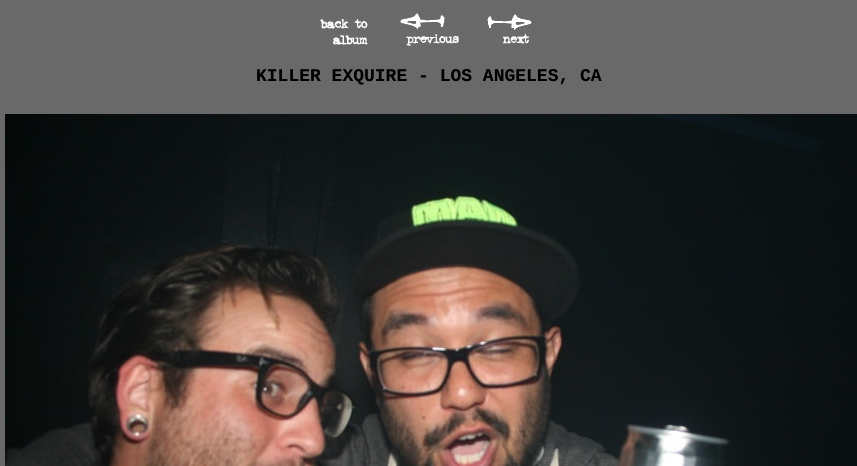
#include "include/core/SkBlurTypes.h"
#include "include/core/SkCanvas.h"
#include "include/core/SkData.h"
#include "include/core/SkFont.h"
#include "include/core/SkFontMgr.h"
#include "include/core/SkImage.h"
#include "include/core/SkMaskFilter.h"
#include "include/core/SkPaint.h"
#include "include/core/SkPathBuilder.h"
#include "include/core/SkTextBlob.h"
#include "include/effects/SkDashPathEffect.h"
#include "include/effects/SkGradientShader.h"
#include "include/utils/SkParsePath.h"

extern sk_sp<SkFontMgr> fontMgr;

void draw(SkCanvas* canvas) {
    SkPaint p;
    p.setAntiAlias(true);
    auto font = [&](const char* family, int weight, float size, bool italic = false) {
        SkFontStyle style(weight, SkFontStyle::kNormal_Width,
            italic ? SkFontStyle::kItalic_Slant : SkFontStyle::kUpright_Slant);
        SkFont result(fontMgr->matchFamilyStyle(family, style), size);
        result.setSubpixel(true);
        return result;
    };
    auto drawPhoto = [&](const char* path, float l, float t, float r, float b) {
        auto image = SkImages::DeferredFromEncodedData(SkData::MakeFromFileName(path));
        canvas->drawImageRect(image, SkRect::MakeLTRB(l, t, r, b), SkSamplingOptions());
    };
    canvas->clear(0xFF696969);
    drawPhoto("media/1.png", 320, 18, 368, 45);
    drawPhoto("media/2.png", 400, 13, 459, 46);
    drawPhoto("media/3.png", 487, 14, 532, 44);
    auto font1 = font("Liberation Mono", 700, 18);
    p.setColor(0xFF000000);
    canvas->drawString("KILLER EXQUIRE - LOS ANGELES, CA", 256, 81, font1, p);
    drawPhoto("media/4.png", 5, 114, 857, 466);
}
